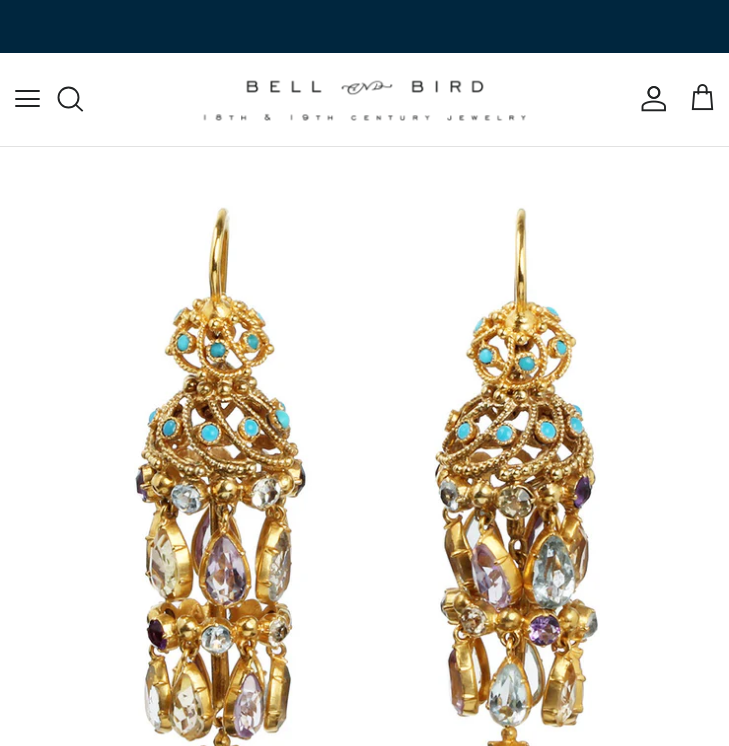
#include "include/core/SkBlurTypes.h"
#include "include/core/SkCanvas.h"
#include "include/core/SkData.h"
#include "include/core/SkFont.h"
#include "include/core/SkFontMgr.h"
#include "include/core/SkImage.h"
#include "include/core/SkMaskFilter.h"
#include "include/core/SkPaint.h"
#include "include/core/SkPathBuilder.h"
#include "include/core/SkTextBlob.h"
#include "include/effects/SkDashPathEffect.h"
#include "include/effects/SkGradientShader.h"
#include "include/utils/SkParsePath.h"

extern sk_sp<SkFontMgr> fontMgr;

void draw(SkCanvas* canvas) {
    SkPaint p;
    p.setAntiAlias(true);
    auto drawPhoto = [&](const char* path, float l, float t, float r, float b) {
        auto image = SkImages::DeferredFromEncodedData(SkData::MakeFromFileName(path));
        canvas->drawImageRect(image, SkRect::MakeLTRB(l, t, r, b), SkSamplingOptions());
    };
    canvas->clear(0xFFFFFFFF);
    p.setColor(0xFF00263E);
    canvas->drawRect(SkRect::MakeLTRB(0, 0, 729, 53), p);
    p.setColor(0xFFE2E2E2);
    canvas->drawRect(SkRect::MakeLTRB(0, 146, 729, 147), p);
    p.setStyle(SkPaint::kStroke_Style);
    p.setStrokeWidth(1.9f);
    p.setStrokeCap(SkPaint::kRound_Cap);
    p.setStrokeJoin(SkPaint::kRound_Join);
    p.setColor(0xFF202223);
    canvas->drawPath(SkPathBuilder().moveTo(16, 99).lineTo(39, 99).moveTo(16, 91).lineTo(39, 91).moveTo(16, 106).lineTo(39, 106).detach(), p);
    p.setStrokeCap(SkPaint::kButt_Cap);
    p.setStrokeJoin(SkPaint::kMiter_Join);
    canvas->drawCircle(68.5f, 97.5f, 10, p);
    p.setStrokeCap(SkPaint::kSquare_Cap);
    canvas->drawPath(SkPathBuilder().moveTo(76, 105).lineTo(82, 110.5f).detach(), p);
    drawPhoto("media/1.png", 203, 80, 526, 121);
    drawPhoto("media/2.png", 641, 86, 666, 112);
    drawPhoto("media/3.png", 691, 84, 714, 111);
    drawPhoto("media/4.png", 134, 205, 600, 746);
}
